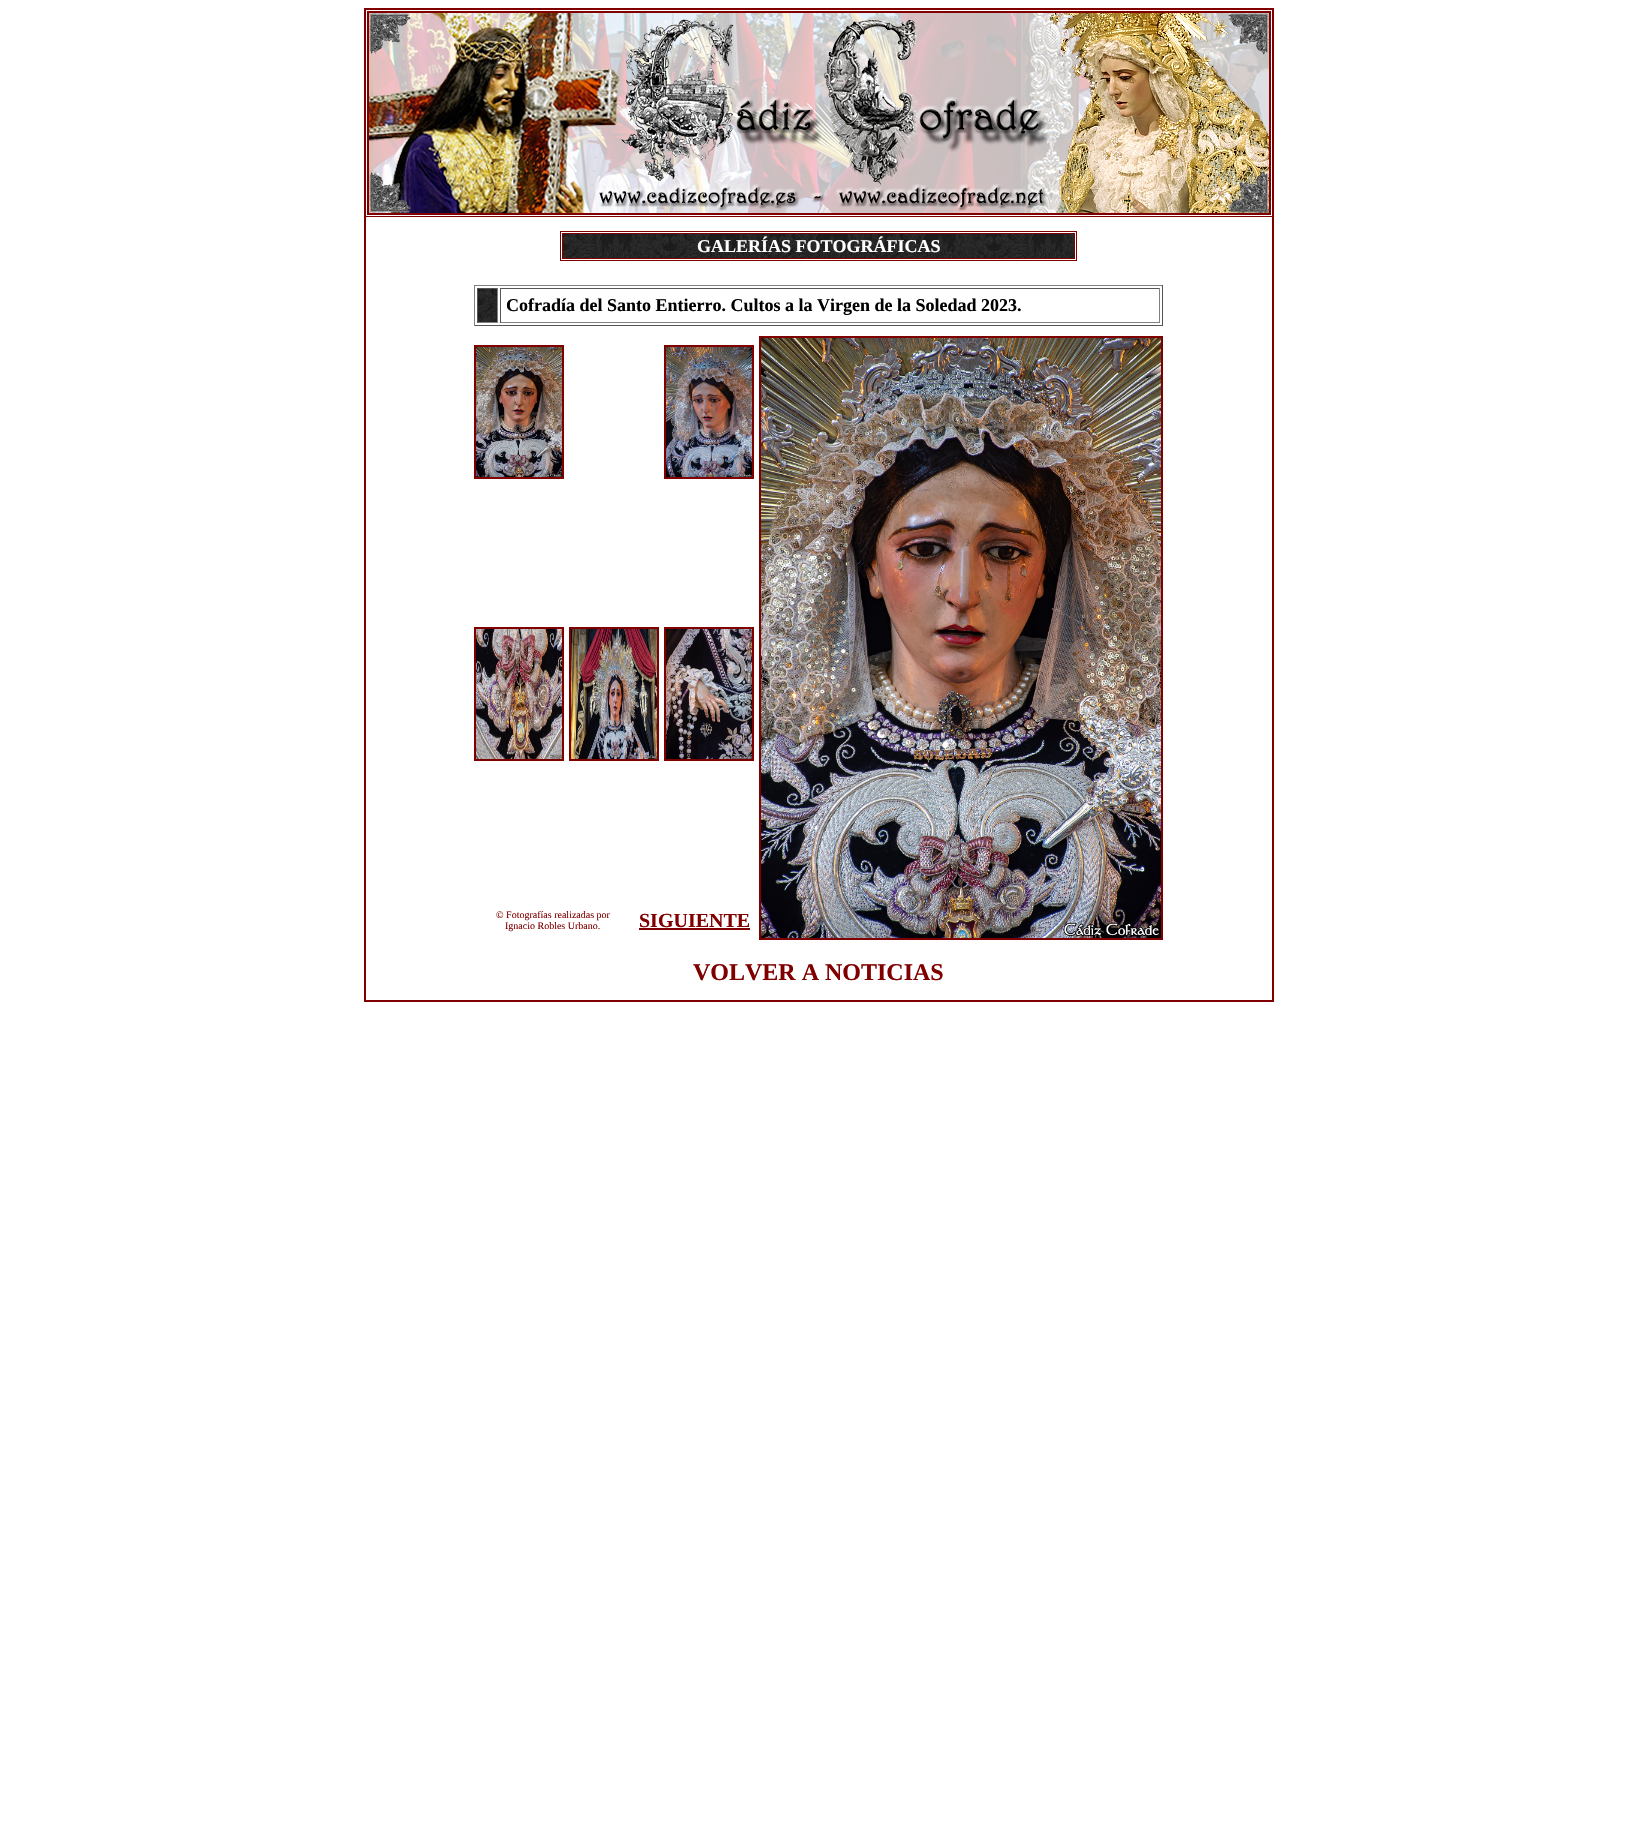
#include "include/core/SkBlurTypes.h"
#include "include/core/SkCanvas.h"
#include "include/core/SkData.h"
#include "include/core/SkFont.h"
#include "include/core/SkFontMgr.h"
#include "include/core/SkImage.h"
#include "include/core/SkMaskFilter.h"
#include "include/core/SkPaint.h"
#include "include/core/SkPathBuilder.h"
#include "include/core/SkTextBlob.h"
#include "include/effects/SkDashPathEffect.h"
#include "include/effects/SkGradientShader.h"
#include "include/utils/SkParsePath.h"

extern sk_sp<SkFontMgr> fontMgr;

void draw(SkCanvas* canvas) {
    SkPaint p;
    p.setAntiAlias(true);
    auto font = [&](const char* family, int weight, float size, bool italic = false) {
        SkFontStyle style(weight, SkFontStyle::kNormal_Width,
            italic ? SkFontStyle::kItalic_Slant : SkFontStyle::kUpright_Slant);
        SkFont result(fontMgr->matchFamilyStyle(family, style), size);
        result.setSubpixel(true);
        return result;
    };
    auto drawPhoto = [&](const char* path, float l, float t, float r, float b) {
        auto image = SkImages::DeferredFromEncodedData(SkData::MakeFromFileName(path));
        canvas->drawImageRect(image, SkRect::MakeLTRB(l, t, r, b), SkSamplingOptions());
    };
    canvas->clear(0xFFFFFFFF);
    {
        const struct { float l, t, r, b; SkColor color; } items[] = {
            {364, 8, 1274, 10, 0xFF800000},
            {364, 216, 1273, 217, 0xFF800000},
            {1272, 8, 1274, 1002, 0xFF800000},
            {364, 1000, 1274, 1002, 0xFF800000},
            {364, 8, 366, 1002, 0xFF800000},
            {367, 11, 1271, 12, 0xFF800000},
            {1270, 11, 1271, 215, 0xFF800000},
            {367, 214, 1271, 215, 0xFF800000},
            {367, 11, 368, 215, 0xFF800000},
        };
        for (auto [l, t, r, b, color] : items) {
            p.setColor(color);
            canvas->drawRect(SkRect::MakeLTRB(l, t, r, b), p);
        }
    }
    p.setStyle(SkPaint::kStroke_Style);
    p.setStrokeWidth(1);
    canvas->drawRect(SkRect::MakeLTRB(368.5f, 12.5f, 1269.5f, 213.5f), p);
    drawPhoto("media/1.png", 369, 13, 1269, 213);
    canvas->drawRect(SkRect::MakeLTRB(560.5f, 231.5f, 1076.5f, 260.5f), p);
    drawPhoto("media/2.png", 563, 234, 1074, 258);
    canvas->drawRect(SkRect::MakeLTRB(562.5f, 233.5f, 1074.5f, 258.5f), p);
    auto font1 = font("Liberation Serif", 700, 18);
    p.setStyle(SkPaint::kFill_Style);
    p.setColor(0xFFFFFFFF);
    canvas->drawString("GALERÍAS FOTOGRÁFICAS", 697, 252, font1, p);
    {
        const struct { float l, t, r, b; SkColor color; } items[] = {
            {474, 285, 1163, 286, 0xFF808080},
            {1162, 285, 1163, 326, 0xFF555555},
            {474, 325, 1163, 326, 0xFF555555},
            {474, 285, 475, 326, 0xFF808080},
        };
        for (auto [l, t, r, b, color] : items) {
            p.setColor(color);
            canvas->drawRect(SkRect::MakeLTRB(l, t, r, b), p);
        }
    }
    drawPhoto("media/3.png", 478, 289, 497, 322);
    {
        const struct { float l, t, r, b; SkColor color; } items[] = {
            {477, 288, 498, 289, 0xFF555555},
            {497, 288, 498, 323, 0xFF808080},
            {477, 322, 498, 323, 0xFF808080},
            {477, 288, 478, 323, 0xFF555555},
            {500, 288, 1160, 289, 0xFF555555},
            {1159, 288, 1160, 323, 0xFF808080},
            {500, 322, 1160, 323, 0xFF808080},
            {500, 288, 501, 323, 0xFF555555},
        };
        for (auto [l, t, r, b, color] : items) {
            p.setColor(color);
            canvas->drawRect(SkRect::MakeLTRB(l, t, r, b), p);
        }
    }
    p.setColor(0xFF000000);
    canvas->drawString("Cofradía del Santo Entierro. Cultos a la Virgen de la Soledad 2023.", 506, 311, font1, p);
    p.setStyle(SkPaint::kStroke_Style);
    p.setStrokeWidth(2);
    p.setColor(0xFF800000);
    canvas->drawRect(SkRect::MakeLTRB(475, 346, 563, 478), p);
    drawPhoto("media/4.png", 476, 347, 562, 477);
    canvas->drawRect(SkRect::MakeLTRB(665, 346, 753, 478), p);
    drawPhoto("media/5.png", 666, 347, 752, 477);
    canvas->drawRect(SkRect::MakeLTRB(475, 628, 563, 760), p);
    drawPhoto("media/6.png", 476, 629, 562, 759);
    canvas->drawRect(SkRect::MakeLTRB(570, 628, 658, 760), p);
    drawPhoto("media/7.png", 571, 629, 657, 759);
    canvas->drawRect(SkRect::MakeLTRB(665, 628, 753, 760), p);
    drawPhoto("media/8.png", 666, 629, 752, 759);
    auto font2 = font("Liberation Serif", 400, 10);
    p.setStyle(SkPaint::kFill_Style);
    canvas->drawString("© Fotografías realizadas por", 496, 918, font2, p);
    canvas->drawString("Ignacio Robles Urbano.", 505, 929, font2, p);
    auto font3 = font("Liberation Serif", 700, 20);
    canvas->drawString("SIGUIENTE", 639, 927, font3, p);
    {
        const struct { float l, t, r, b; SkColor color; } items[] = {
            {639, 928, 750, 930, 0xFF800000},
            {759, 336, 1163, 338, 0xFF800000},
            {1161, 336, 1163, 940, 0xFF800000},
            {759, 938, 1163, 940, 0xFF800000},
            {759, 336, 761, 940, 0xFF800000},
        };
        for (auto [l, t, r, b, color] : items) {
            p.setColor(color);
            canvas->drawRect(SkRect::MakeLTRB(l, t, r, b), p);
        }
    }
    drawPhoto("media/9.png", 761, 338, 1161, 938);
    auto font4 = font("Liberation Serif", 700, 24);
    canvas->drawString("VOLVER A NOTICIAS", 693, 980, font4, p);
}
